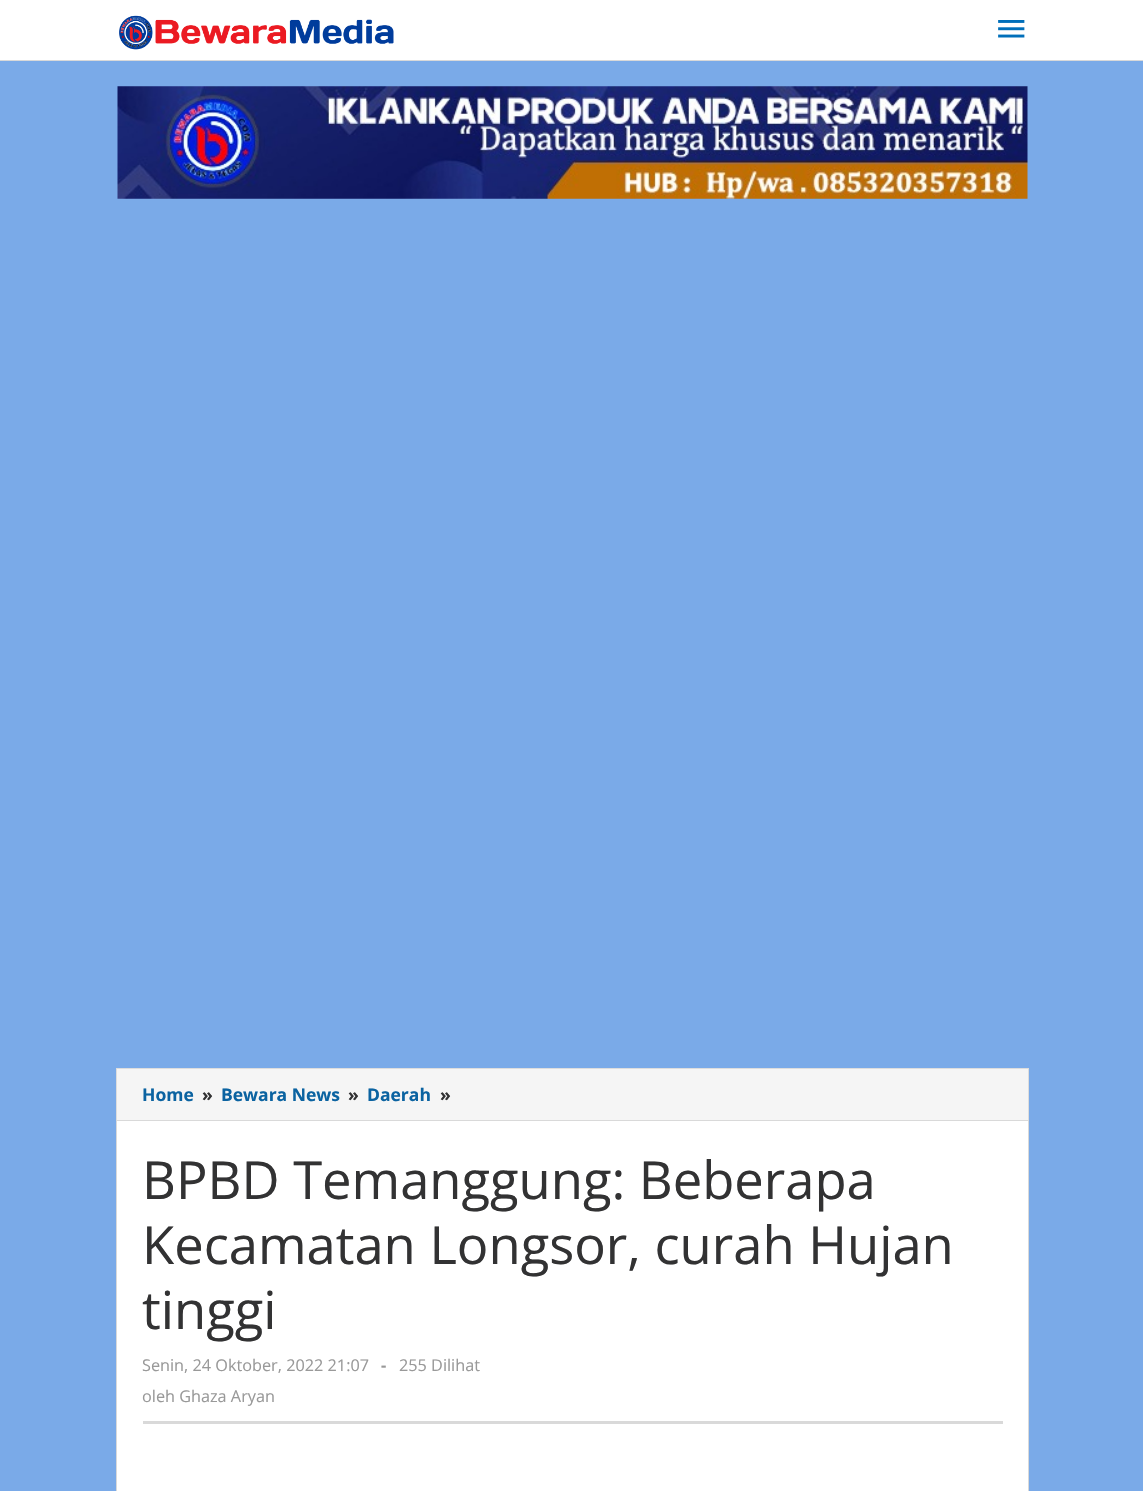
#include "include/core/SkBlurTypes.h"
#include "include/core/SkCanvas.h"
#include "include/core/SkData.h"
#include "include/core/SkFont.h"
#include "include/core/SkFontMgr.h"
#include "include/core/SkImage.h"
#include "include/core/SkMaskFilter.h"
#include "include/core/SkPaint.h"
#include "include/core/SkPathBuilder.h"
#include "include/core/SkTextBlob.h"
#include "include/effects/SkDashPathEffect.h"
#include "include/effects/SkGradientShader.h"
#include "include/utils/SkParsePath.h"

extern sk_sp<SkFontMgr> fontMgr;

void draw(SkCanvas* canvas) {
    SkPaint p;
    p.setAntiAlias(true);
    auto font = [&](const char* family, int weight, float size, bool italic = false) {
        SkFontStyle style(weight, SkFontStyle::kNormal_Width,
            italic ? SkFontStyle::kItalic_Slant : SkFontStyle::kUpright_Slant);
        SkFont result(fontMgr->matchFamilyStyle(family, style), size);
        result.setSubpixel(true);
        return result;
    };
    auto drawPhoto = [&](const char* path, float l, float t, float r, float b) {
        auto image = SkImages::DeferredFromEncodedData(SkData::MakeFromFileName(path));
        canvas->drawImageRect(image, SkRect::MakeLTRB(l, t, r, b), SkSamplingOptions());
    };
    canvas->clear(0xFF7AAAE8);
    p.setColor(0xFFFFFFFF);
    canvas->drawRect(SkRect::MakeLTRB(0, 0, 1143, 60), p);
    p.setColor(0xFFD9D9D9);
    canvas->drawRect(SkRect::MakeLTRB(0, 60, 1143, 61), p);
    drawPhoto("media/1.png", 119, 15, 394, 50);
    drawPhoto("media/2.png", 998, 20, 1025, 38);
    drawPhoto("media/3.png", 117, 86, 1028, 199);
    p.setColor(0xFFF5F5F5);
    canvas->drawRect(SkRect::MakeLTRB(116.5f, 1068.5f, 1028.5f, 1120.5f), p);
    p.setStyle(SkPaint::kStroke_Style);
    p.setStrokeWidth(1);
    p.setColor(0xFFDDDDDD);
    canvas->drawRect(SkRect::MakeLTRB(116.5f, 1068.5f, 1028.5f, 1120.5f), p);
    auto font1 = font("Open Sans", 700, 17.5f);
    p.setStyle(SkPaint::kFill_Style);
    p.setColor(0xFF0B63A1);
    canvas->drawString("Home", 142, 1101, font1, p);
    p.setColor(0xFF323233);
    canvas->drawString("»", 202, 1101, font1, p);
    p.setColor(0xFF0B63A1);
    canvas->drawString("Bewara News", 221, 1101, font1, p);
    p.setColor(0xFF323233);
    canvas->drawString("»", 348, 1101, font1, p);
    p.setColor(0xFF0B63A1);
    canvas->drawString("Daerah", 367, 1101, font1, p);
    p.setColor(0xFF323233);
    canvas->drawString("»", 440, 1101, font1, p);
    p.setColor(0xFFFFFFFF);
    canvas->drawRect(SkRect::MakeLTRB(116.5f, 1120.5f, 1028.5f, 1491.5f), p);
    p.setStyle(SkPaint::kStroke_Style);
    p.setColor(0xFFD9D9D9);
    canvas->drawRect(SkRect::MakeLTRB(116.5f, 1120.5f, 1028.5f, 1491.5f), p);
    p.setStyle(SkPaint::kFill_Style);
    canvas->drawRect(SkRect::MakeLTRB(143, 1421, 1003, 1424), p);
    auto font2 = font("Open Sans", 400, 52.5f);
    p.setColor(0xFF323233);
    {
        const struct { const char* s; float x, y; } items[] = {
            {"BPBD Temanggung: Beberapa", 142, 1199},
            {"Kecamatan Longsor, curah Hujan", 142, 1264},
            {"tinggi", 142, 1329},
        };
        for (auto [s, x, y] : items) {
            canvas->drawString(s, x, y, font2, p);
        }
    }
    auto font3 = font("Open Sans", 400, 16.25f);
    p.setColor(0xFF999999);
    canvas->drawString("Senin, 24 Oktober, 2022 21:07", 142, 1371, font3, p);
    auto font4 = font("Open Sans", 700, 16.25f);
    canvas->drawString("-", 381, 1371, font4, p);
    canvas->drawString("255 Dilihat", 399, 1371, font3, p);
    canvas->drawString("oleh Ghaza Aryan", 142, 1402, font3, p);
}
